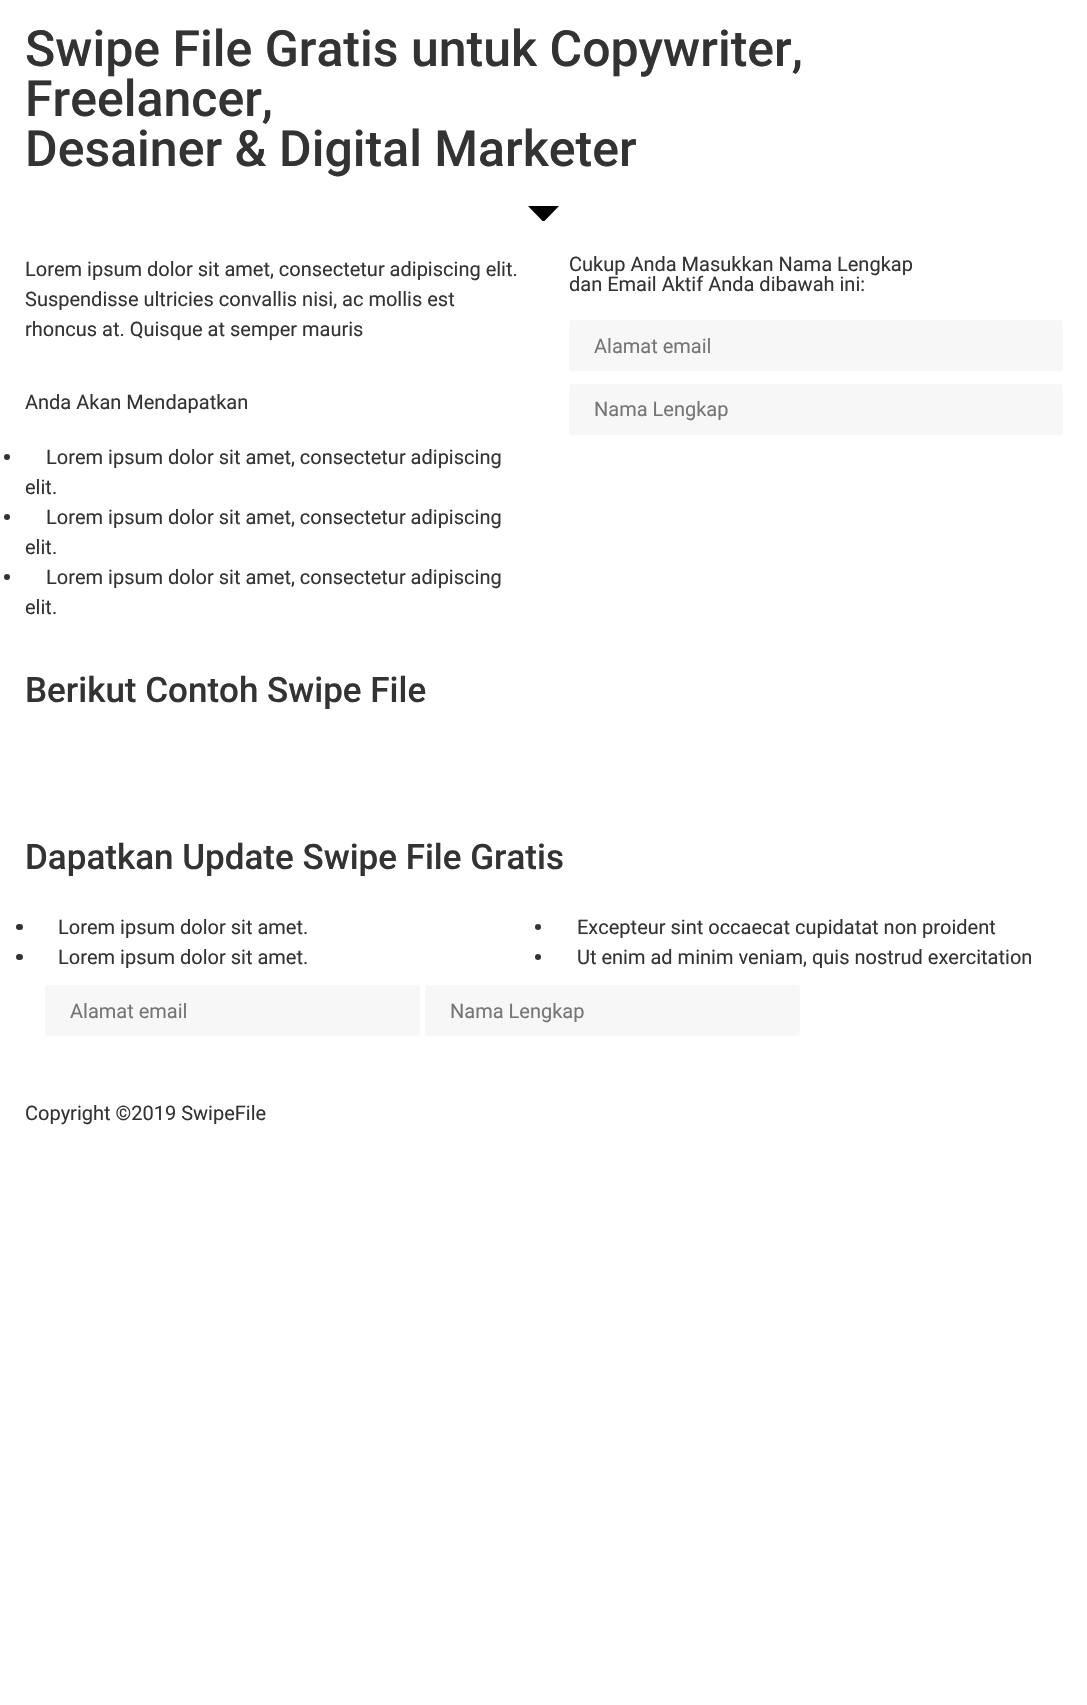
#include "include/core/SkBlurTypes.h"
#include "include/core/SkCanvas.h"
#include "include/core/SkData.h"
#include "include/core/SkFont.h"
#include "include/core/SkFontMgr.h"
#include "include/core/SkImage.h"
#include "include/core/SkMaskFilter.h"
#include "include/core/SkPaint.h"
#include "include/core/SkPathBuilder.h"
#include "include/core/SkTextBlob.h"
#include "include/effects/SkDashPathEffect.h"
#include "include/effects/SkGradientShader.h"
#include "include/utils/SkParsePath.h"

extern sk_sp<SkFontMgr> fontMgr;

void draw(SkCanvas* canvas) {
    SkPaint p;
    p.setAntiAlias(true);
    auto font = [&](const char* family, int weight, float size, bool italic = false) {
        SkFontStyle style(weight, SkFontStyle::kNormal_Width,
            italic ? SkFontStyle::kItalic_Slant : SkFontStyle::kUpright_Slant);
        SkFont result(fontMgr->matchFamilyStyle(family, style), size);
        result.setSubpixel(true);
        return result;
    };
    canvas->clear(0xFFFFFFFF);
    auto font1 = font("Roboto", 500, 50);
    p.setColor(0xFF333333);
    {
        const struct { const char* s; float x, y; } items[] = {
            {"Swipe File Gratis untuk Copywriter,", 25, 66},
            {"Freelancer,", 25, 116},
            {"Desainer & Digital Marketer", 25, 166},
        };
        for (auto [s, x, y] : items) {
            canvas->drawString(s, x, y, font1, p);
        }
    }
    canvas->save();
    canvas->clipRect(SkRect::MakeLTRB(0, 206, 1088, 221));
    p.setColor(0xFF000000);
    canvas->drawPath(SkPathBuilder().moveTo(543.5f, 222).lineTo(528, 206).lineTo(559, 206).close().detach(), p);
    canvas->restore();
    auto font2 = font("Roboto", 400, 20);
    p.setColor(0xFF333333);
    {
        const struct { const char* s; float x, y; } items[] = {
            {"Lorem ipsum dolor sit amet, consectetur adipiscing elit.", 25, 276},
            {"Suspendisse ultricies convallis nisi, ac mollis est", 25, 306},
            {"rhoncus at. Quisque at semper mauris", 25, 336},
            {"Anda Akan Mendapatkan", 25, 409},
        };
        for (auto [s, x, y] : items) {
            canvas->drawString(s, x, y, font2, p);
        }
    }
    canvas->drawCircle(7, 457, 3, p);
    canvas->drawString("Lorem ipsum dolor sit amet, consectetur adipiscing", 46, 464, font2, p);
    canvas->drawString("elit.", 25, 494, font2, p);
    canvas->drawCircle(7, 517, 3, p);
    canvas->drawString("Lorem ipsum dolor sit amet, consectetur adipiscing", 46, 524, font2, p);
    canvas->drawString("elit.", 25, 554, font2, p);
    canvas->drawCircle(7, 577, 3, p);
    {
        const struct { const char* s; float x, y; } items[] = {
            {"Lorem ipsum dolor sit amet, consectetur adipiscing", 46, 584},
            {"elit.", 25, 614},
            {"Cukup Anda Masukkan Nama Lengkap", 569, 271},
            {"dan Email Aktif Anda dibawah ini:", 569, 291},
        };
        for (auto [s, x, y] : items) {
            canvas->drawString(s, x, y, font2, p);
        }
    }
    p.setColor(0xFFF7F7F7);
    canvas->drawRoundRect(SkRect::MakeLTRB(569, 320, 1063, 371), 4, 4, p);
    p.setColor(0xFF757575);
    canvas->drawString("Alamat email", 594, 353, font2, p);
    p.setColor(0xFFF7F7F7);
    canvas->drawRoundRect(SkRect::MakeLTRB(569, 384, 1063, 435), 4, 4, p);
    p.setColor(0xFF757575);
    canvas->drawString("Nama Lengkap", 594, 416, font2, p);
    auto font3 = font("Roboto", 500, 35);
    p.setColor(0xFF333333);
    canvas->drawString("Berikut Contoh Swipe File", 25, 702, font3, p);
    canvas->drawString("Dapatkan Update Swipe File Gratis", 25, 869, font3, p);
    canvas->drawRoundRect(SkRect::MakeLTRB(16, 924, 23, 930), 3, 3, p);
    canvas->drawString("Lorem ipsum dolor sit amet.", 58, 934, font2, p);
    canvas->drawRoundRect(SkRect::MakeLTRB(16, 954, 23, 960), 3, 3, p);
    canvas->drawString("Lorem ipsum dolor sit amet.", 58, 964, font2, p);
    canvas->drawCircle(538, 927, 3, p);
    canvas->drawString("Excepteur sint occaecat cupidatat non proident", 577, 934, font2, p);
    canvas->drawCircle(538, 957, 3, p);
    canvas->drawString("Ut enim ad minim veniam, quis nostrud exercitation", 577, 964, font2, p);
    p.setColor(0xFFF7F7F7);
    canvas->drawRoundRect(SkRect::MakeLTRB(45, 985, 420, 1036), 4, 4, p);
    p.setColor(0xFF757575);
    canvas->drawString("Alamat email", 70, 1018, font2, p);
    p.setColor(0xFFF7F7F7);
    canvas->drawRoundRect(SkRect::MakeLTRB(425, 985, 800, 1036), 4, 4, p);
    p.setColor(0xFF757575);
    canvas->drawString("Nama Lengkap", 450, 1018, font2, p);
    p.setColor(0xFF333333);
    canvas->drawString("Copyright ©2019 SwipeFile", 25, 1120, font2, p);
}
